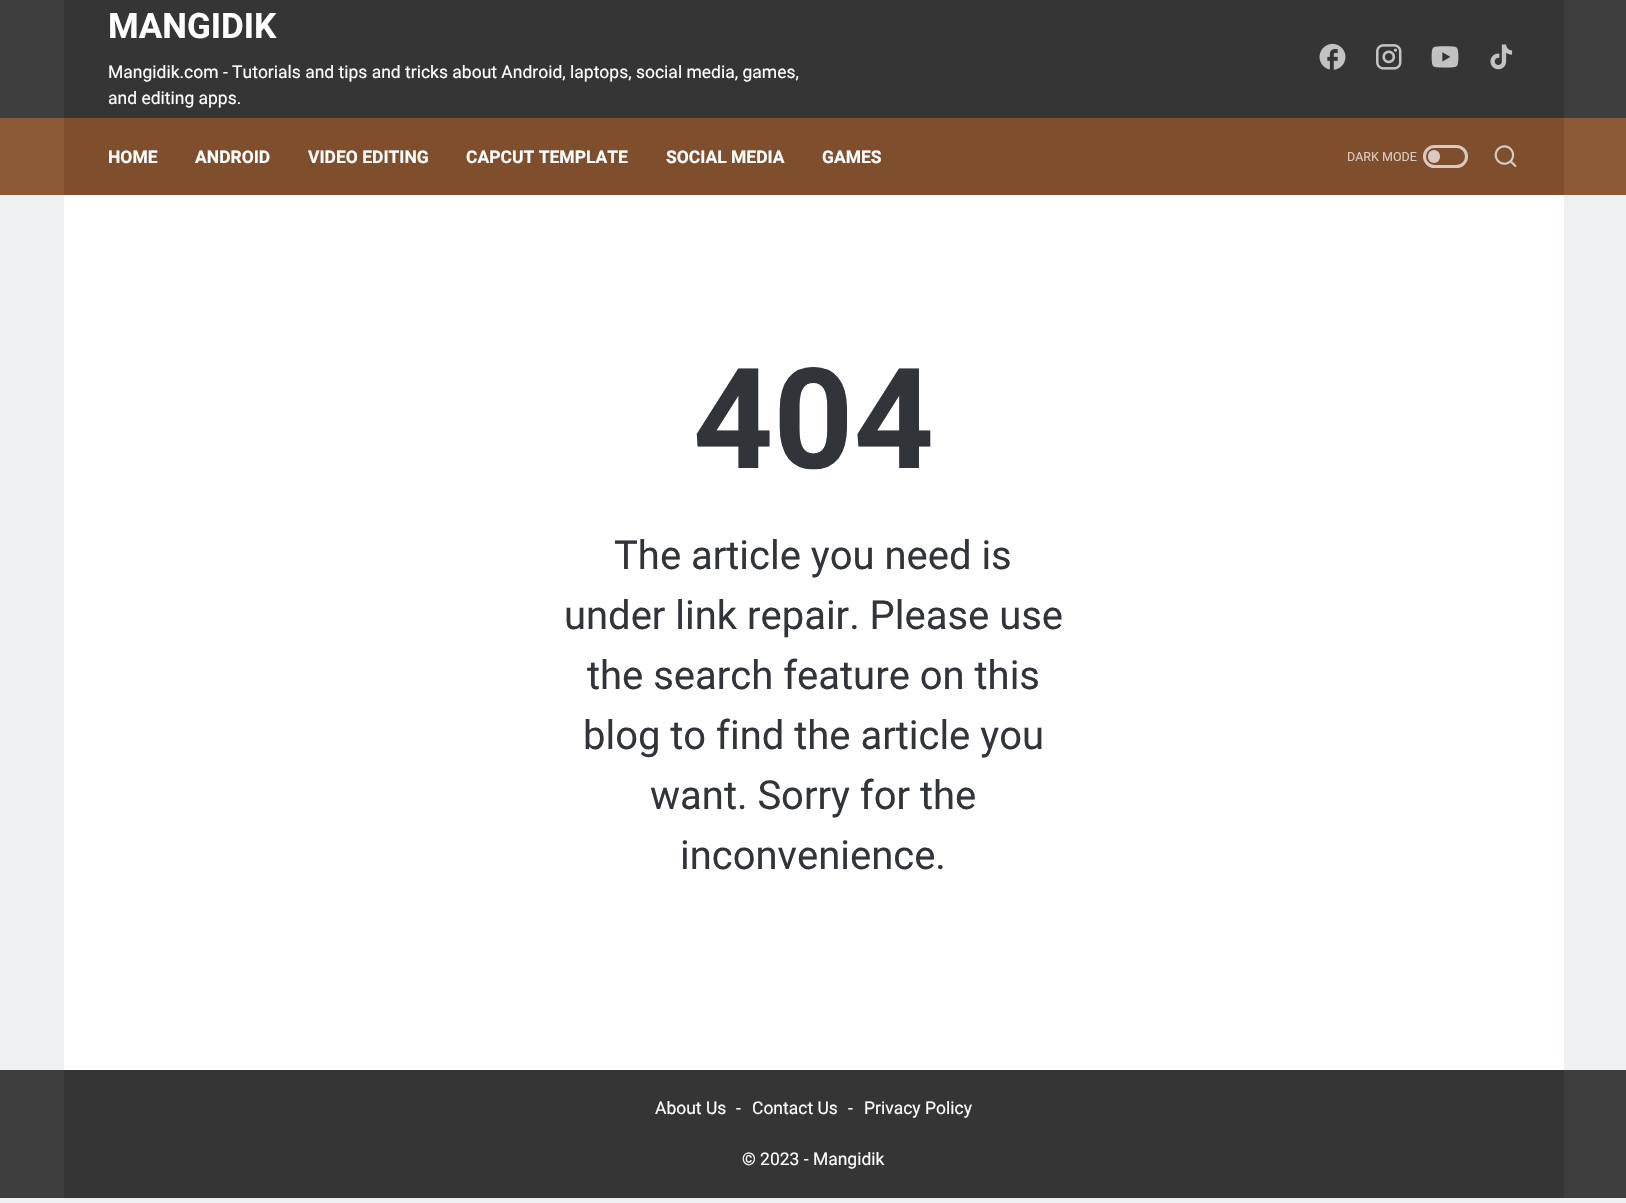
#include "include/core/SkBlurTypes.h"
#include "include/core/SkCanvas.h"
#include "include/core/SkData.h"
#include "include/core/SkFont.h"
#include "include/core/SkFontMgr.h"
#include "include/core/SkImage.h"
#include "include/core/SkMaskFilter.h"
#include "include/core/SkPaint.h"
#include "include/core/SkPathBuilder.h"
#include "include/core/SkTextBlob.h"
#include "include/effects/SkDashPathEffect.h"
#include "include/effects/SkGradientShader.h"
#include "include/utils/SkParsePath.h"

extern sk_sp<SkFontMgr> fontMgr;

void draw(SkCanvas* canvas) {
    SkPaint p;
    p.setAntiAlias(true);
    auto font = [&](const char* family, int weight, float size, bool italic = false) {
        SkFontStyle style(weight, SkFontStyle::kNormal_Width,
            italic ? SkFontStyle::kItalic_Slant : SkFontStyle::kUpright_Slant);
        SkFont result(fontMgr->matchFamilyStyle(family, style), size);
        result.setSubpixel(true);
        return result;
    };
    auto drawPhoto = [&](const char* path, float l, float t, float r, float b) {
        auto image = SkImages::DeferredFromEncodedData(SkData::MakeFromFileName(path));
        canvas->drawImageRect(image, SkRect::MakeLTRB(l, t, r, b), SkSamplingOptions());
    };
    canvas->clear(0xFFEDF1F2);
    p.setColor(0xFF3E3E3E);
    canvas->drawRect(SkRect::MakeLTRB(0, 0, 1626, 118), p);
    p.setColor(0xFF353535);
    canvas->drawRect(SkRect::MakeLTRB(64, 0, 1564, 118), p);
    auto font1 = font("Roboto", 700, 35);
    p.setColor(0xFFFFFFFF);
    canvas->drawString("MANGIDIK", 108, 38, font1, p);
    auto font2 = font("Roboto", 400, 17.5f);
    canvas->drawString("Mangidik.com - Tutorials and tips and tricks about Android, laptops, social media, games,", 108, 78, font2, p);
    canvas->drawString("and editing apps.", 108, 104, font2, p);
    drawPhoto("media/1.png", 1319, 43, 1346, 70);
    drawPhoto("media/2.png", 1376, 44, 1402, 70);
    drawPhoto("media/3.png", 1431, 46, 1459, 68);
    drawPhoto("media/4.png", 1490, 44, 1513, 70);
    p.setColor(0xFF8C5937);
    canvas->drawRect(SkRect::MakeLTRB(0, 118, 1626, 195), p);
    p.setColor(0xFF7F4E2D);
    canvas->drawRect(SkRect::MakeLTRB(64, 118, 1564, 195), p);
    auto font3 = font("Roboto", 700, 17.5f);
    p.setColor(0xFFFFFFFF);
    {
        const struct { const char* s; float x, y; } items[] = {
            {"HOME", 108, 163},
            {"ANDROID", 195, 163},
            {"VIDEO EDITING", 308, 163},
            {"CAPCUT TEMPLATE", 466, 163},
            {"SOCIAL MEDIA", 666, 163},
            {"GAMES", 822, 163},
        };
        for (auto [s, x, y] : items) {
            canvas->drawString(s, x, y, font3, p);
        }
    }
    auto font4 = font("Roboto", 400, 12.5f);
    p.setColor(0xFFD9CAC0);
    canvas->drawString("DARK MODE", 1347, 161, font4, p);
    p.setStyle(SkPaint::kStroke_Style);
    p.setStrokeWidth(3);
    canvas->drawRoundRect(SkRect::MakeLTRB(1424.5f, 146.5f, 1466.5f, 166.5f), 10, 10, p);
    p.setStyle(SkPaint::kFill_Style);
    canvas->drawRoundRect(SkRect::MakeLTRB(1428, 150, 1440, 163), 6, 6, p);
    drawPhoto("media/5.png", 1494, 145, 1517, 168);
    p.setColor(0xFFFFFFFF);
    canvas->drawRect(SkRect::MakeLTRB(64, 195, 1564, 1070), p);
    auto font5 = font("Roboto", 700, 140);
    p.setColor(0xFF31353A);
    canvas->drawString("404", 693, 468, font5, p);
    auto font6 = font("Roboto", 400, 40);
    {
        const struct { const char* s; float x, y; } items[] = {
            {"The article you need is", 614, 569},
            {"under link repair. Please use", 564, 629},
            {"the search feature on this", 587, 689},
            {"blog to find the article you", 583, 749},
            {"want. Sorry for the", 650, 809},
            {"inconvenience.", 680, 869},
        };
        for (auto [s, x, y] : items) {
            canvas->drawString(s, x, y, font6, p);
        }
    }
    p.setColor(0xFF3E3E3E);
    canvas->drawRect(SkRect::MakeLTRB(0, 1070, 1626, 1198), p);
    p.setColor(0xFF353535);
    canvas->drawRect(SkRect::MakeLTRB(64, 1070, 1564, 1198), p);
    p.setColor(0xFFFFFFFF);
    {
        const struct { const char* s; float x, y; } items[] = {
            {"About Us", 655, 1114},
            {"-", 736, 1114},
            {"Contact Us", 752, 1114},
            {"-", 848, 1114},
            {"Privacy Policy", 864, 1114},
            {"© 2023 - Mangidik", 742, 1165},
        };
        for (auto [s, x, y] : items) {
            canvas->drawString(s, x, y, font2, p);
        }
    }
}
